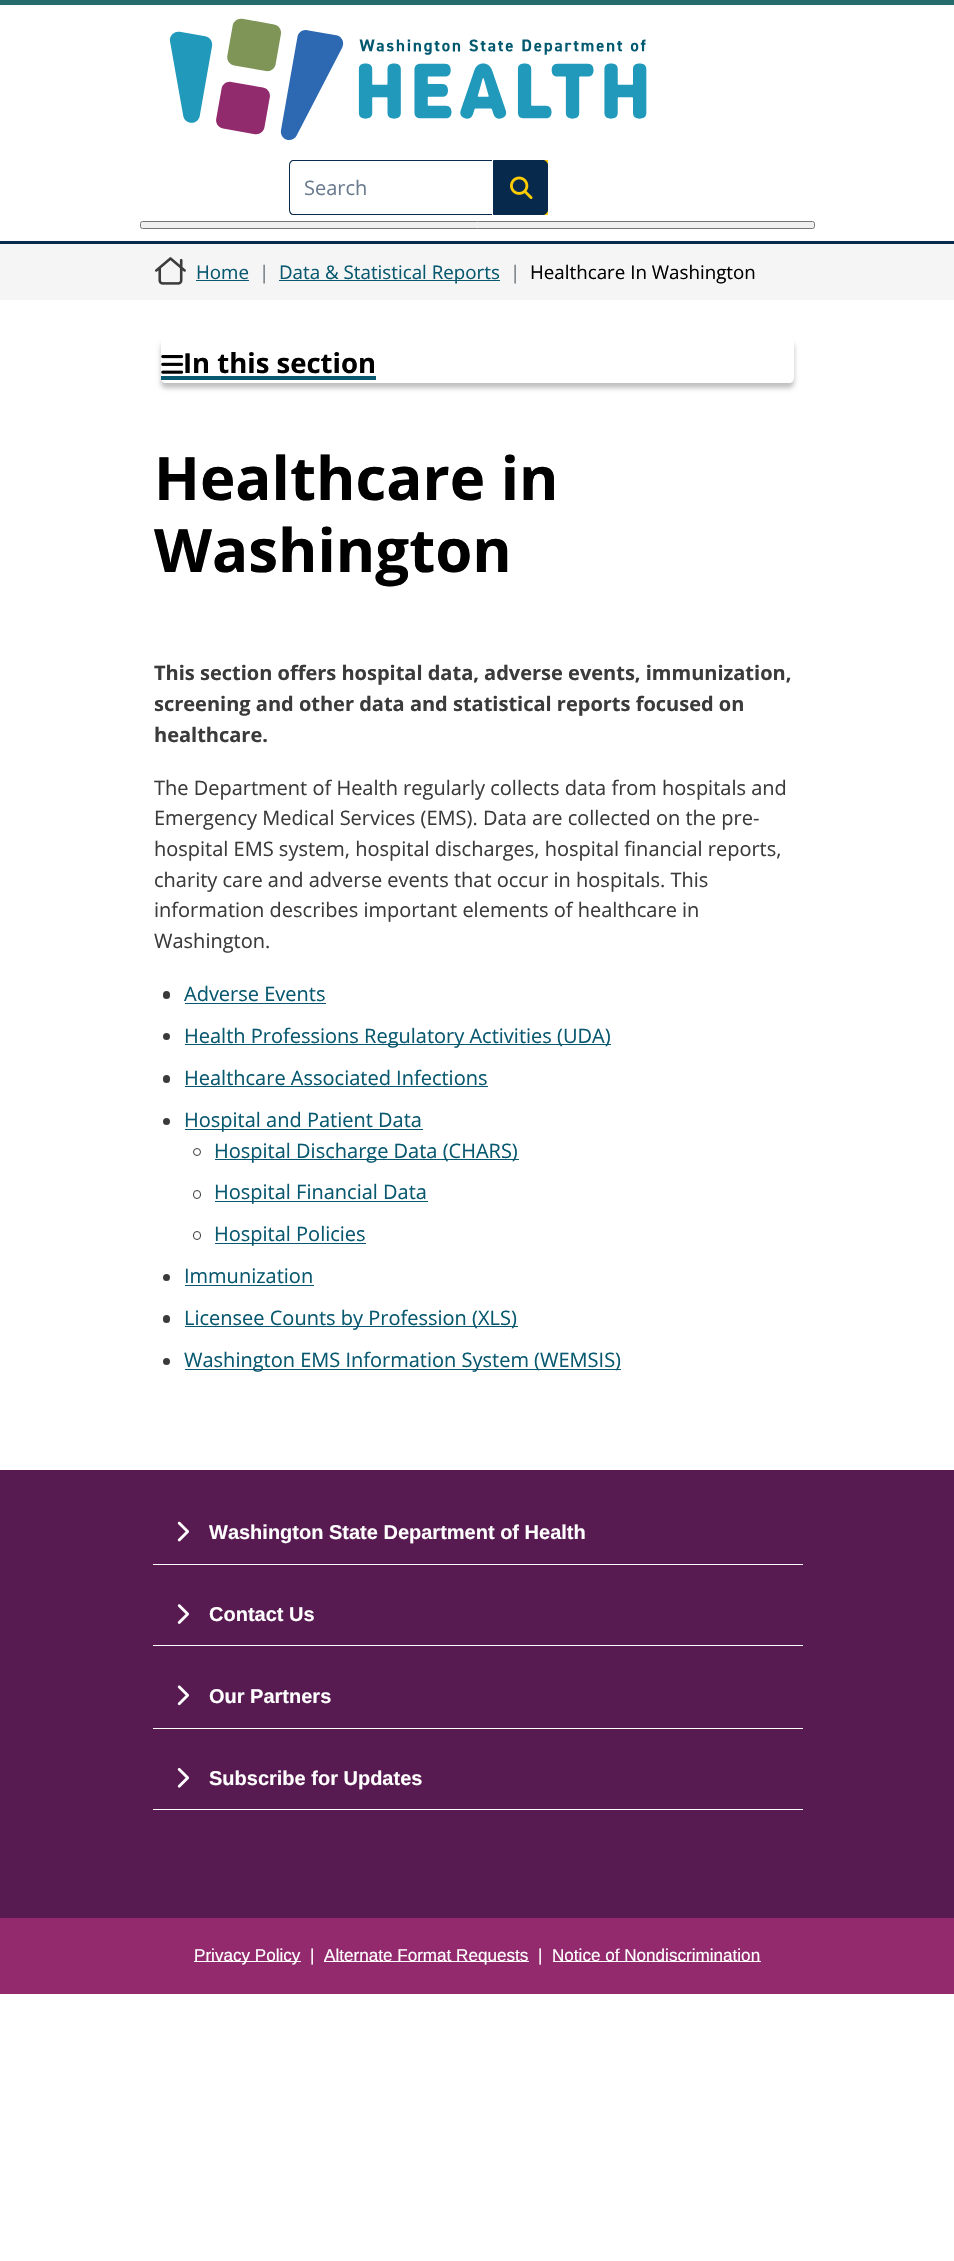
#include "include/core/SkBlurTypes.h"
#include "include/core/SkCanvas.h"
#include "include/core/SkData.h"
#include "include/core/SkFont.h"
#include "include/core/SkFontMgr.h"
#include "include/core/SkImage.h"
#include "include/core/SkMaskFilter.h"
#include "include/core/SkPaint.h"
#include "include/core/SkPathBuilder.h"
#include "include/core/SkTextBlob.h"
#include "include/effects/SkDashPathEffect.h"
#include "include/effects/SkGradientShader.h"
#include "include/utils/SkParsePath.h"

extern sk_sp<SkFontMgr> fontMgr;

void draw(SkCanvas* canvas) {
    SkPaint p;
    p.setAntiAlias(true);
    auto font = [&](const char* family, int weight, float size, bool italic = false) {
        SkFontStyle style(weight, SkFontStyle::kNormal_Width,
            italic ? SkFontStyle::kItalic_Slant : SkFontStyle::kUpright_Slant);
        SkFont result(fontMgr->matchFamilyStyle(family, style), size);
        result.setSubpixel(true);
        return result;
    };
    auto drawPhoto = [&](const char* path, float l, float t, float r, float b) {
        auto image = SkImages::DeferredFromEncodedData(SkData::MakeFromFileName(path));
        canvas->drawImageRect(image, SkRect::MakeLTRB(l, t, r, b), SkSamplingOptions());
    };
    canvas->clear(0xFFFFFFFF);
    p.setColor(0xFF266C6C);
    canvas->drawRect(SkRect::MakeLTRB(0, 0, 954, 5), p);
    drawPhoto("media/1.png", 169, 18, 647, 140);
    p.setColor(0xFF07294C);
    canvas->drawPath(SkPathBuilder(SkPathFillType::kEvenOdd).moveTo(293, 160).lineTo(492, 160).lineTo(492, 215).lineTo(293, 215).cubicTo(291, 215, 289, 213, 289, 210).lineTo(289, 165).cubicTo(289, 162, 291, 160, 293, 160).close().moveTo(293, 161).lineTo(492, 161).lineTo(492, 214).lineTo(293, 214).cubicTo(292, 214, 290, 212, 290, 210).lineTo(290, 165).cubicTo(290, 163, 292, 161, 293, 161).close().detach(), p);
    auto font1 = font("Open Sans", 400, 20);
    p.setColor(0xFF6B7C8F);
    canvas->drawString("Search", 304, 195, font1, p);
    p.setColor(0xFFFFCC00);
    canvas->drawRect(SkRect::MakeLTRB(543, 160, 548, 215), p);
    p.setColor(0xFF07294C);
    canvas->drawPath(SkPathBuilder().moveTo(493.5f, 160.5f).lineTo(543, 160.5f).cubicTo(545.5f, 160.5f, 547.5f, 162.5f, 547.5f, 165).lineTo(547.5f, 210).cubicTo(547.5f, 212.5f, 545.5f, 214.5f, 543, 214.5f).lineTo(493.5f, 214.5f).close().detach(), p);
    p.setStyle(SkPaint::kStroke_Style);
    p.setStrokeWidth(1);
    canvas->drawPath(SkPathBuilder().moveTo(493.5f, 160.5f).lineTo(543, 160.5f).cubicTo(545.5f, 160.5f, 547.5f, 162.5f, 547.5f, 165).lineTo(547.5f, 210).cubicTo(547.5f, 212.5f, 545.5f, 214.5f, 543, 214.5f).lineTo(493.5f, 214.5f).close().detach(), p);
    drawPhoto("media/2.png", 510, 176, 533, 199);
    p.setStyle(SkPaint::kFill_Style);
    p.setColor(0xFFEFEFEF);
    canvas->drawRoundRect(SkRect::MakeLTRB(140.5f, 221.5f, 814.5f, 228.5f), 2, 2, p);
    p.setStyle(SkPaint::kStroke_Style);
    p.setColor(0xFF767676);
    canvas->drawRoundRect(SkRect::MakeLTRB(140.5f, 221.5f, 814.5f, 228.5f), 2, 2, p);
    p.setStyle(SkPaint::kFill_Style);
    p.setColor(0xFF07294C);
    canvas->drawRect(SkRect::MakeLTRB(0, 241, 954, 244), p);
    p.setColor(0xFFF5F5F5);
    canvas->drawRect(SkRect::MakeLTRB(0, 244, 954, 300), p);
    drawPhoto("media/3.png", 155, 257, 186, 285);
    auto font2 = font("Open Sans", 400, 18.75f);
    p.setColor(0xFF08586F);
    canvas->drawString("Home", 196, 279, font2, p);
    canvas->drawRect(SkRect::MakeLTRB(196, 280, 249, 281), p);
    p.setColor(0xFF6C757D);
    canvas->drawString("|", 259, 279, font2, p);
    p.setColor(0xFF08586F);
    canvas->drawRect(SkRect::MakeLTRB(279, 280, 500, 281), p);
    canvas->drawString("Data & Statistical Reports", 279, 279, font2, p);
    p.setColor(0xFF6C757D);
    canvas->drawString("|", 510, 279, font2, p);
    p.setColor(0xFF000000);
    canvas->drawString("Healthcare In Washington", 530, 279, font2, p);
    canvas->save();
    canvas->clipPath(SkPathBuilder(SkPathFillType::kEvenOdd).moveTo(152, 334).lineTo(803, 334).lineTo(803, 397).lineTo(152, 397).close().moveTo(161, 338).lineTo(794, 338).lineTo(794, 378).cubicTo(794, 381, 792, 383, 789, 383).lineTo(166, 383).cubicTo(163, 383, 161, 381, 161, 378).close().detach(), true);
    p.setColor(0x40000000);
    p.setMaskFilter(SkMaskFilter::MakeBlur(kNormal_SkBlurStyle, 2.5f));
    canvas->drawRoundRect(SkRect::MakeLTRB(161, 343, 794, 388), 5, 5, p);
    p.setMaskFilter(nullptr);
    canvas->restore();
    drawPhoto("media/4.png", 161, 355, 184, 374);
    auto font3 = font("Open Sans", 700, 27.5f);
    p.setColor(0xFF000000);
    canvas->drawString("In this section", 183, 373, font3, p);
    p.setColor(0xFF08586F);
    canvas->drawRect(SkRect::MakeLTRB(161, 376, 376, 380), p);
    auto font4 = font("Open Sans", 700, 60);
    p.setColor(0xFF000000);
    canvas->drawString("Healthcare in", 154, 500, font4, p);
    canvas->drawString("Washington", 154, 572, font4, p);
    auto font5 = font("Open Sans", 700, 20);
    p.setColor(0xFF3B3B3B);
    {
        const struct { const char* s; float x, y; } items[] = {
            {"This section offers hospital data, adverse events, immunization,", 154, 680},
            {"screening and other data and statistical reports focused on", 154, 711},
            {"healthcare.", 154, 742},
        };
        for (auto [s, x, y] : items) {
            canvas->drawString(s, x, y, font5, p);
        }
    }
    {
        const struct { const char* s; float x, y; } items[] = {
            {"The Department of Health regularly collects data from hospitals and", 154, 795},
            {"Emergency Medical Services (EMS). Data are collected on the pre-", 154, 825},
            {"hospital EMS system, hospital discharges, hospital financial reports,", 154, 856},
            {"charity care and adverse events that occur in hospitals. This", 154, 887},
            {"information describes important elements of healthcare in", 154, 917},
            {"Washington.", 154, 948},
        };
        for (auto [s, x, y] : items) {
            canvas->drawString(s, x, y, font1, p);
        }
    }
    canvas->drawRoundRect(SkRect::MakeLTRB(163, 991, 170, 999), 3.5f, 3.5f, p);
    p.setColor(0xFF08586F);
    canvas->drawString("Adverse Events", 184, 1001, font1, p);
    canvas->drawRect(SkRect::MakeLTRB(185, 1003, 326, 1004), p);
    p.setColor(0xFF3B3B3B);
    canvas->drawCircle(166.5f, 1036.5f, 3.5f, p);
    p.setColor(0xFF08586F);
    canvas->drawRect(SkRect::MakeLTRB(185, 1044, 611, 1045), p);
    canvas->drawString("Health Professions Regulatory Activities (UDA)", 184, 1043, font1, p);
    p.setColor(0xFF3B3B3B);
    canvas->drawRoundRect(SkRect::MakeLTRB(163, 1075, 170, 1083), 3.5f, 3.5f, p);
    p.setColor(0xFF08586F);
    canvas->drawString("Healthcare Associated Infections", 184, 1085, font1, p);
    canvas->drawRect(SkRect::MakeLTRB(185, 1086, 488, 1087), p);
    p.setColor(0xFF3B3B3B);
    canvas->drawCircle(166.5f, 1121.5f, 3.5f, p);
    p.setColor(0xFF08586F);
    canvas->drawRect(SkRect::MakeLTRB(185, 1129, 423, 1130), p);
    canvas->drawString("Hospital and Patient Data", 184, 1127, font1, p);
    p.setStyle(SkPaint::kStroke_Style);
    p.setColor(0xFF3B3B3B);
    canvas->drawCircle(197, 1152, 3.5f, p);
    p.setStyle(SkPaint::kFill_Style);
    p.setColor(0xFF08586F);
    canvas->drawRect(SkRect::MakeLTRB(215, 1159, 519, 1160), p);
    canvas->drawString("Hospital Discharge Data (CHARS)", 214, 1158, font1, p);
    p.setStyle(SkPaint::kStroke_Style);
    p.setColor(0xFF3B3B3B);
    canvas->drawRoundRect(SkRect::MakeLTRB(193.5f, 1190.5f, 200.5f, 1198.5f), 3.5f, 3.5f, p);
    p.setStyle(SkPaint::kFill_Style);
    p.setColor(0xFF08586F);
    canvas->drawRect(SkRect::MakeLTRB(215, 1201, 428, 1202), p);
    canvas->drawString("Hospital Financial Data", 214, 1199, font1, p);
    p.setStyle(SkPaint::kStroke_Style);
    p.setColor(0xFF3B3B3B);
    canvas->drawRoundRect(SkRect::MakeLTRB(193.5f, 1231.5f, 200.5f, 1239.5f), 3.5f, 3.5f, p);
    p.setStyle(SkPaint::kFill_Style);
    p.setColor(0xFF08586F);
    canvas->drawRect(SkRect::MakeLTRB(215, 1243, 366, 1244), p);
    canvas->drawString("Hospital Policies", 214, 1241, font1, p);
    p.setColor(0xFF3B3B3B);
    canvas->drawCircle(166.5f, 1277.5f, 3.5f, p);
    p.setColor(0xFF08586F);
    canvas->drawString("Immunization", 184, 1283, font1, p);
    canvas->drawRect(SkRect::MakeLTRB(185, 1285, 314, 1286), p);
    p.setColor(0xFF3B3B3B);
    canvas->drawRoundRect(SkRect::MakeLTRB(163, 1315, 170, 1323), 3.5f, 3.5f, p);
    p.setColor(0xFF08586F);
    canvas->drawRect(SkRect::MakeLTRB(185, 1326, 518, 1327), p);
    canvas->drawString("Licensee Counts by Profession (XLS)", 184, 1325, font1, p);
    p.setColor(0xFF3B3B3B);
    canvas->drawCircle(166.5f, 1361.5f, 3.5f, p);
    p.setColor(0xFF08586F);
    canvas->drawRect(SkRect::MakeLTRB(185, 1369, 621, 1370), p);
    canvas->drawString("Washington EMS Information System (WEMSIS)", 184, 1367, font1, p);
    p.setColor(0xFF581B51);
    canvas->drawRect(SkRect::MakeLTRB(0, 1470, 954, 1918), p);
    p.setColor(0xFFFFFFFF);
    canvas->drawRect(SkRect::MakeLTRB(153, 1564, 803, 1565), p);
    drawPhoto("media/5.png", 177, 1521, 189, 1542);
    auto font6 = font("Liberation Sans", 700, 20);
    canvas->drawString("Washington State Department of Health", 209, 1539, font6, p);
    canvas->drawRect(SkRect::MakeLTRB(153, 1645, 803, 1646), p);
    drawPhoto("media/6.png", 177, 1604, 189, 1624);
    canvas->drawString("Contact Us", 209, 1621, font6, p);
    canvas->drawRect(SkRect::MakeLTRB(153, 1728, 803, 1729), p);
    drawPhoto("media/7.png", 177, 1685, 189, 1706);
    canvas->drawString("Our Partners", 209, 1703, font6, p);
    canvas->drawRect(SkRect::MakeLTRB(153, 1809, 803, 1810), p);
    drawPhoto("media/8.png", 177, 1768, 189, 1788);
    canvas->drawString("Subscribe for Updates", 209, 1785, font6, p);
    p.setColor(0xFF932A6E);
    canvas->drawRect(SkRect::MakeLTRB(0, 1918, 954, 1994), p);
    p.setColor(0xFFFFFFFF);
    canvas->drawRect(SkRect::MakeLTRB(194, 1961, 301, 1962), p);
    auto font7 = font("Liberation Sans", 400, 17.1f);
    canvas->drawString("Privacy Policy", 194, 1961, font7, p);
    canvas->drawString("|", 310, 1961, font7, p);
    canvas->drawRect(SkRect::MakeLTRB(324, 1961, 529, 1962), p);
    canvas->drawString("Alternate Format Requests", 324, 1961, font7, p);
    canvas->drawString("|", 538, 1961, font7, p);
    canvas->drawRect(SkRect::MakeLTRB(553, 1961, 761, 1962), p);
    canvas->drawString("Notice of Nondiscrimination", 552, 1961, font7, p);
}
